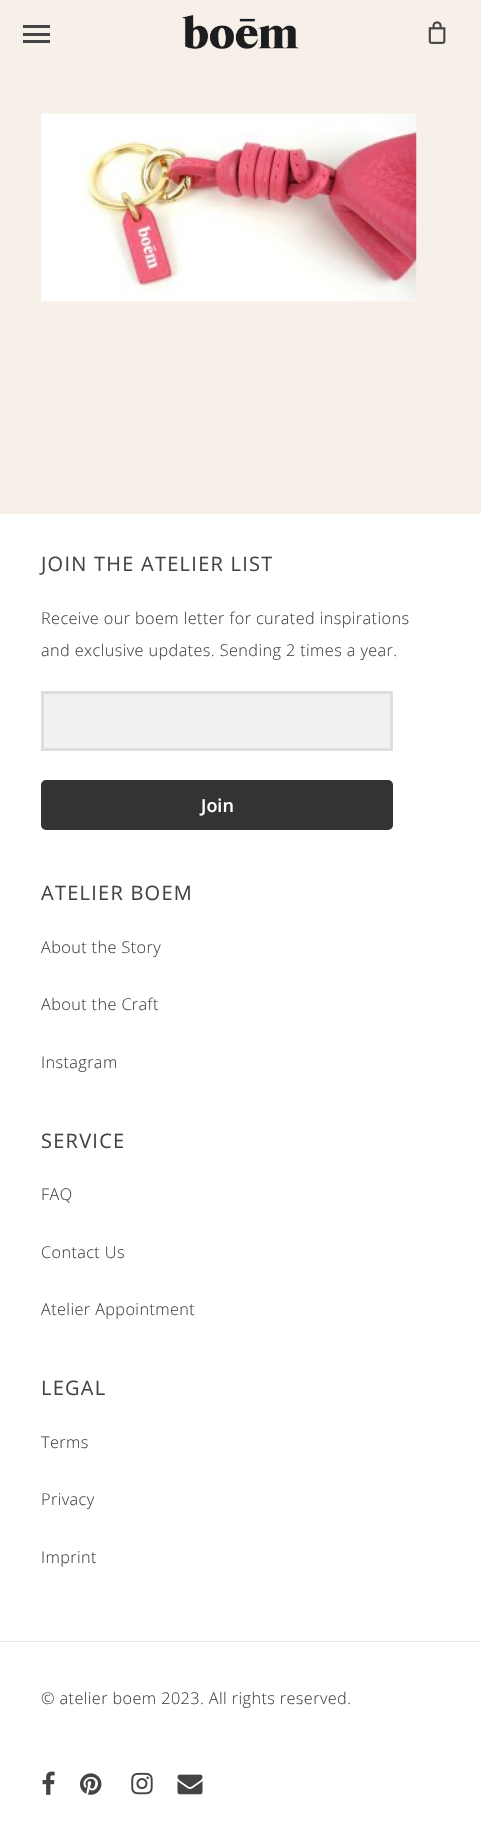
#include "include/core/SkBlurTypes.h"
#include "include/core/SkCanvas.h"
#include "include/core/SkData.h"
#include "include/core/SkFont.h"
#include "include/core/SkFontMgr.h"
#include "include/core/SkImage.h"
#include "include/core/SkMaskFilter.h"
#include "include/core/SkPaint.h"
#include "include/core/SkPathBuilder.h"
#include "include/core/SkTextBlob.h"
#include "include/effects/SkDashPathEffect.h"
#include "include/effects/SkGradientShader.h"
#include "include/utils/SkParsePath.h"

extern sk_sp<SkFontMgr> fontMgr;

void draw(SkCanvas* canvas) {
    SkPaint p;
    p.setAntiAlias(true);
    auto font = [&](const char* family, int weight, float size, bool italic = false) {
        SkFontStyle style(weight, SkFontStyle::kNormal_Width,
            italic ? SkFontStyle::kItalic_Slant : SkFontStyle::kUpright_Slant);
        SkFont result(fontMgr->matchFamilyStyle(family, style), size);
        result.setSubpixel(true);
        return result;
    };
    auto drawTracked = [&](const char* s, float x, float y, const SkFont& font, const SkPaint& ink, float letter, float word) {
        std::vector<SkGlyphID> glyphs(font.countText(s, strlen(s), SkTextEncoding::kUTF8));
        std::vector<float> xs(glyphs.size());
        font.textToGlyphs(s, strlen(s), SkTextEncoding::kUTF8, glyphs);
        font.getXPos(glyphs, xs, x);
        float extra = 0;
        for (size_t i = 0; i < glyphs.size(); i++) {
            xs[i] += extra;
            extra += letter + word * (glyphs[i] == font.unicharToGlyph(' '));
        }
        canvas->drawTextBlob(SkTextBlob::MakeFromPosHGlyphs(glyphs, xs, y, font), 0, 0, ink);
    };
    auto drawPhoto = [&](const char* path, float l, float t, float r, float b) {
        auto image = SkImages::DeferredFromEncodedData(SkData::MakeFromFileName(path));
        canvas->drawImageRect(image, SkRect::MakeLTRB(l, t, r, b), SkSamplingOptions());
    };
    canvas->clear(0xFFF7F0E8);
    drawPhoto("media/1.png", 182, 15, 299, 49);
    {
        const struct { float l, t, r, b; SkColor color; } items[] = {
            {23, 25, 50, 28, 0xFF444444},
            {23, 40, 50, 43, 0xFF444444},
            {23, 33, 50, 36, 0xFF444444},
        };
        for (auto [l, t, r, b, color] : items) {
            p.setColor(color);
            canvas->drawRect(SkRect::MakeLTRB(l, t, r, b), p);
        }
    }
    drawPhoto("media/2.png", 428, 21, 446, 44);
    drawPhoto("media/3.png", 41, 113, 417, 302);
    p.setColor(0xFFFFFFFF);
    canvas->drawRect(SkRect::MakeLTRB(0, 514, 481, 1822), p);
    auto font1 = font("Open Sans", 400, 20);
    p.setColor(0xFF444444);
    drawTracked("JOIN THE ATELIER LIST", 41, 571, font1, p, 1.25f, 0);
    auto font2 = font("Open Sans", 300, 16.25f);
    drawTracked("Receive our boem letter for curated inspirations", 41, 624, font2, p, 0.4f, 0);
    drawTracked("and exclusive updates. Sending 2 times a year.", 41, 656, font2, p, 0.4f, 0);
    p.setColor(0xFFF1F1F1);
    canvas->drawRect(SkRect::MakeLTRB(42.5f, 692.5f, 391.5f, 749.5f), p);
    p.setStyle(SkPaint::kStroke_Style);
    p.setStrokeWidth(3);
    p.setColor(0xFFDEDEDE);
    canvas->drawRect(SkRect::MakeLTRB(42.5f, 692.5f, 391.5f, 749.5f), p);
    p.setStyle(SkPaint::kFill_Style);
    p.setColor(0xFF333333);
    canvas->drawRoundRect(SkRect::MakeLTRB(41, 780, 393, 830), 5, 5, p);
    auto font3 = font("Open Sans", 600, 18);
    p.setColor(0xFFFFFFFF);
    canvas->drawString("Join", 201, 812, font3, p);
    p.setColor(0xFF444444);
    drawTracked("ATELIER BOEM", 41, 900, font1, p, 1.25f, 0);
    {
        const struct { const char* s; float x, y; } items[] = {
            {"About the Story", 41, 953},
            {"About the Craft", 41, 1010},
            {"Instagram", 41, 1068},
        };
        for (auto [s, x, y] : items) {
            drawTracked(s, x, y, font2, p, 0.4f, 0);
        }
    }
    drawTracked("SERVICE", 41, 1148, font1, p, 1.25f, 0);
    {
        const struct { const char* s; float x, y; } items[] = {
            {"FAQ", 41, 1200},
            {"Contact Us", 41, 1258},
            {"Atelier Appointment", 41, 1315},
        };
        for (auto [s, x, y] : items) {
            drawTracked(s, x, y, font2, p, 0.4f, 0);
        }
    }
    drawTracked("LEGAL", 41, 1395, font1, p, 1.25f, 0);
    {
        const struct { const char* s; float x, y; } items[] = {
            {"Terms", 41, 1448},
            {"Privacy", 41, 1505},
            {"Imprint", 41, 1563},
        };
        for (auto [s, x, y] : items) {
            drawTracked(s, x, y, font2, p, 0.4f, 0);
        }
    }
    p.setColor(0xFFE5E5E5);
    canvas->drawRect(SkRect::MakeLTRB(0, 1641, 481, 1642), p);
    p.setColor(0xFF444444);
    drawTracked("© atelier boem 2023. All rights reserved.", 41, 1704, font2, p, 0.4f, 0);
    drawPhoto("media/4.png", 42, 1771, 55, 1795);
    drawPhoto("media/5.png", 80, 1773, 102, 1795);
    drawPhoto("media/6.png", 131, 1772, 153, 1795);
    drawPhoto("media/7.png", 177, 1774, 203, 1795);
}
